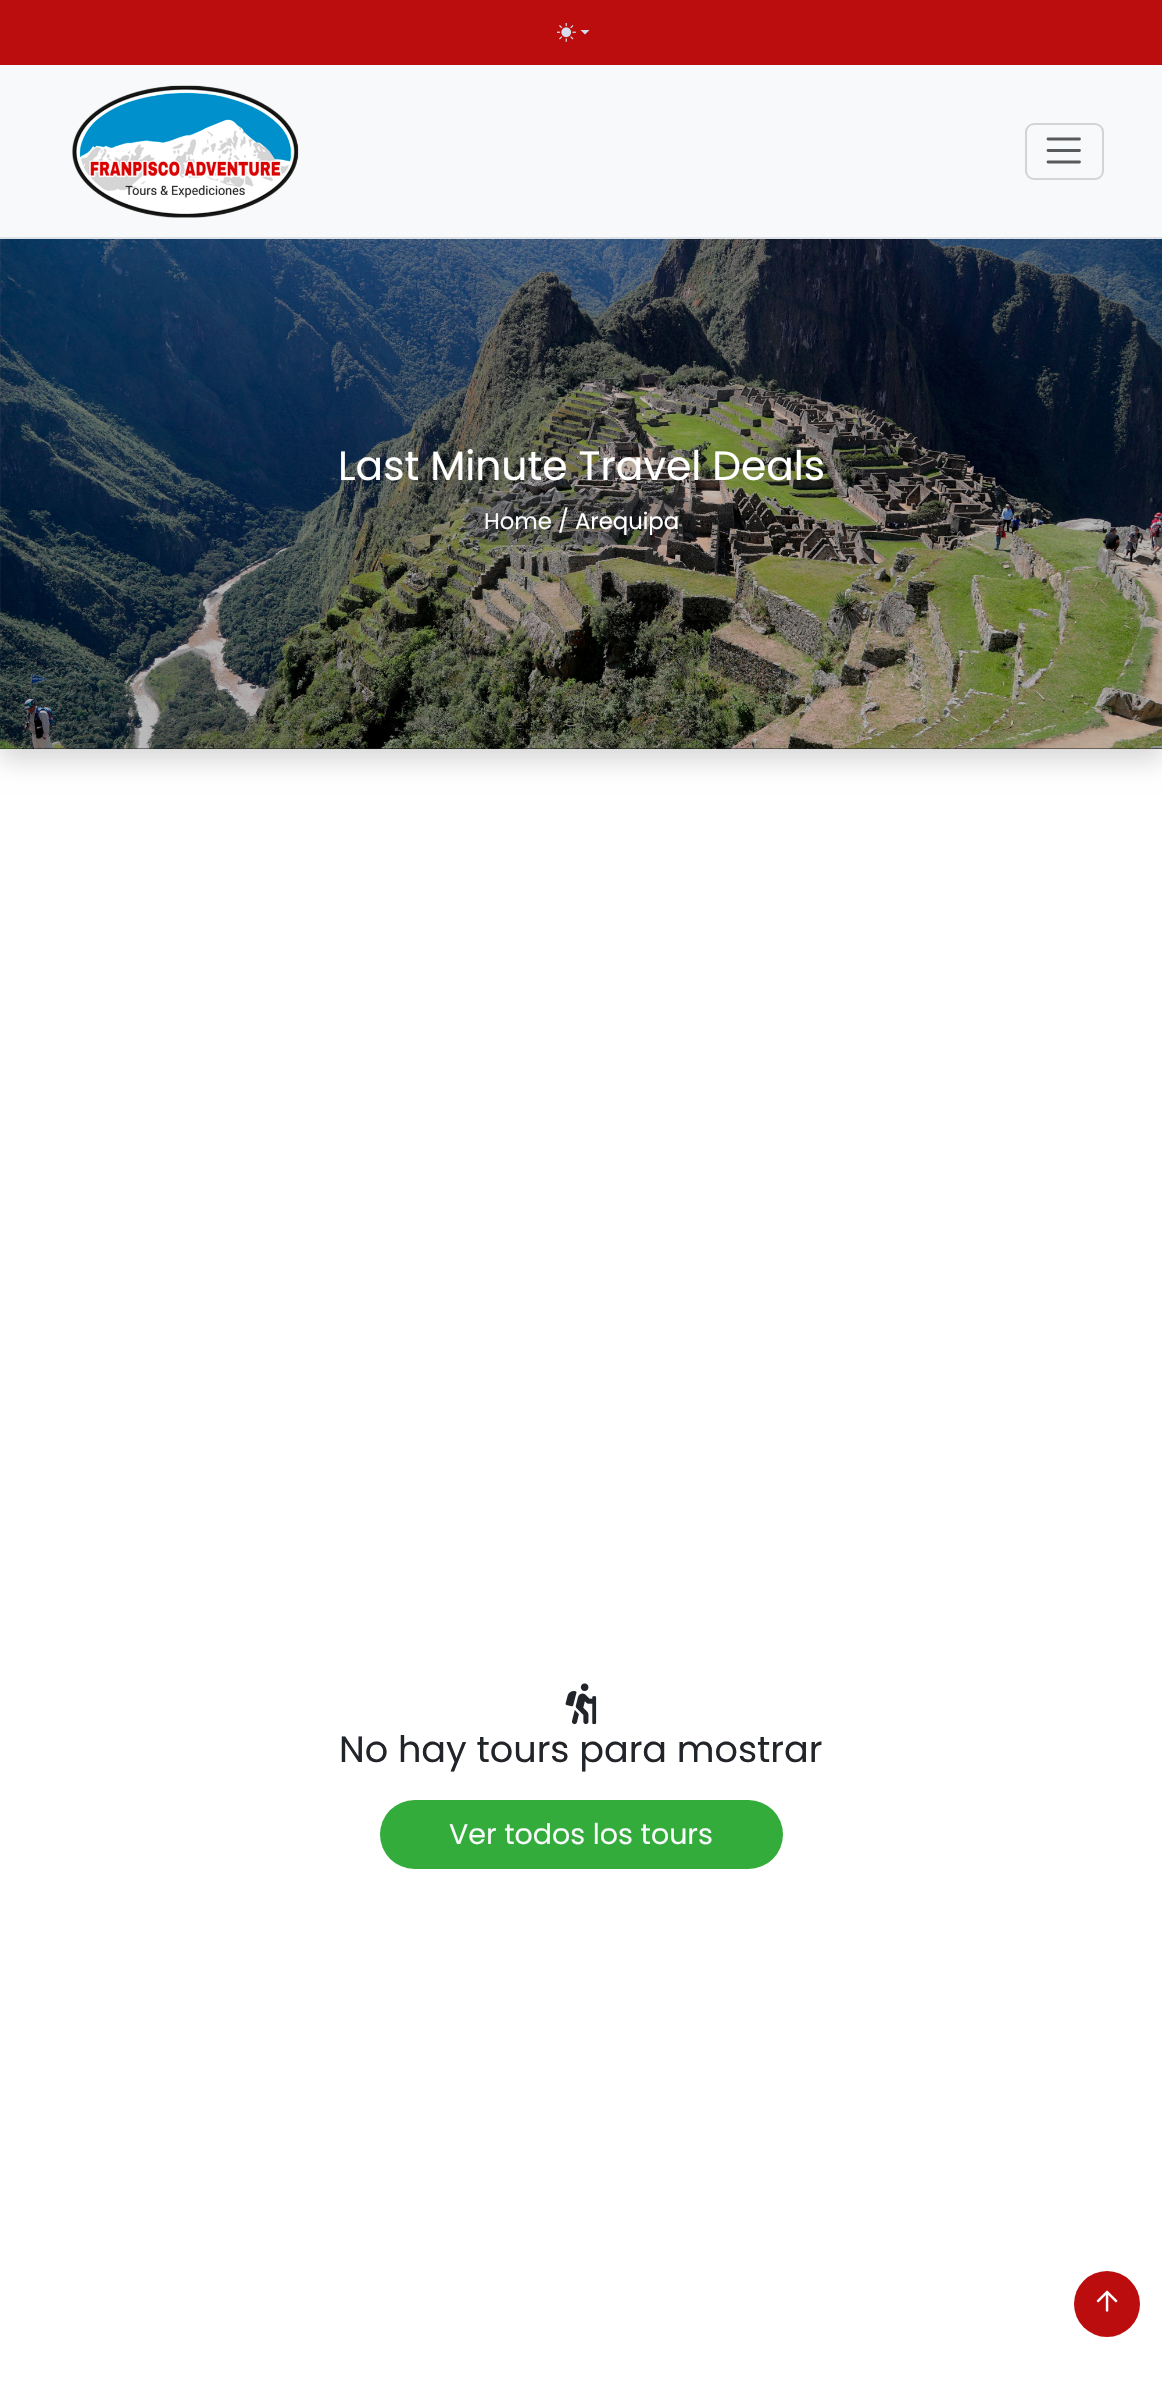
#include "include/core/SkBlurTypes.h"
#include "include/core/SkCanvas.h"
#include "include/core/SkData.h"
#include "include/core/SkFont.h"
#include "include/core/SkFontMgr.h"
#include "include/core/SkImage.h"
#include "include/core/SkMaskFilter.h"
#include "include/core/SkPaint.h"
#include "include/core/SkPathBuilder.h"
#include "include/core/SkTextBlob.h"
#include "include/effects/SkDashPathEffect.h"
#include "include/effects/SkGradientShader.h"
#include "include/utils/SkParsePath.h"

extern sk_sp<SkFontMgr> fontMgr;

void draw(SkCanvas* canvas) {
    SkPaint p;
    p.setAntiAlias(true);
    auto font = [&](const char* family, int weight, float size, bool italic = false) {
        SkFontStyle style(weight, SkFontStyle::kNormal_Width,
            italic ? SkFontStyle::kItalic_Slant : SkFontStyle::kUpright_Slant);
        SkFont result(fontMgr->matchFamilyStyle(family, style), size);
        result.setSubpixel(true);
        return result;
    };
    auto drawPhoto = [&](const char* path, float l, float t, float r, float b) {
        auto image = SkImages::DeferredFromEncodedData(SkData::MakeFromFileName(path));
        canvas->drawImageRect(image, SkRect::MakeLTRB(l, t, r, b), SkSamplingOptions());
    };
    canvas->clear(0xFFFFFFFF);
    p.setColor(0xFFBB0D0D);
    canvas->drawRect(SkRect::MakeLTRB(0, 0, 1162, 65), p);
    drawPhoto("media/1.png", 557, 23, 576, 42);
    p.setColor(0xFFD6DCEA);
    canvas->drawPath(SkPathBuilder().moveTo(580.5f, 30).lineTo(589.5f, 30).lineTo(585, 34.5f).close().detach(), p);
    p.setColor(0x26000000);
    p.setMaskFilter(SkMaskFilter::MakeBlur(kNormal_SkBlurStyle, 11.5f));
    canvas->drawRect(SkRect::MakeLTRB(0, 251, 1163, 761), p);
    p.setMaskFilter(nullptr);
    p.setColor(0xF2F8F9FA);
    canvas->drawRect(SkRect::MakeLTRB(0, 65, 1162, 237), p);
    p.setColor(0xFFDEE2E6);
    canvas->drawRect(SkRect::MakeLTRB(0, 237, 1162, 239), p);
    drawPhoto("media/2.png", 72, 85, 299, 218);
    p.setStyle(SkPaint::kStroke_Style);
    p.setStrokeWidth(2);
    p.setColor(0xFFD3D4D5);
    canvas->drawRoundRect(SkRect::MakeLTRB(1026, 124, 1103, 179), 8, 8, p);
    p.setStrokeWidth(2.8f);
    p.setStrokeCap(SkPaint::kRound_Cap);
    p.setColor(0xFF575A5D);
    canvas->drawPath(SkPathBuilder().moveTo(1048, 139).lineTo(1079.5f, 139).moveTo(1048, 150.5f).lineTo(1079.5f, 150.5f).moveTo(1048, 162).lineTo(1079.5f, 162).detach(), p);
    p.setStyle(SkPaint::kFill_Style);
    p.setColor(0xFF212529);
    canvas->drawRect(SkRect::MakeLTRB(0, 748, 1162, 749), p);
    drawPhoto("media/3.png", 0, 239, 1162, 749);
    p.setColor(0x40000000);
    canvas->drawRect(SkRect::MakeLTRB(0, 239, 1162, 749), p);
    auto font1 = font("Poppins", 400, 40.75f);
    p.setColor(0xFFFFFFFF);
    canvas->drawString("Last Minute Travel Deals", 338, 480, font1, p);
    p.setColor(0x40212529);
    canvas->drawRoundRect(SkRect::MakeLTRB(464, 492, 699, 545), 26.5f, 26.5f, p);
    auto font2 = font("Poppins", 400, 22.75f);
    p.setColor(0xFFF8F9FA);
    canvas->drawString("Home", 484, 529, font2, p);
    p.setColor(0xFFFFFFFF);
    canvas->drawString("/ Arequipa", 558, 529, font2, p);
    drawPhoto("media/4.png", 565, 1683, 597, 1725);
    auto font3 = font("Poppins", 400, 36.6f);
    p.setColor(0xFF212529);
    canvas->drawString("No hay tours para mostrar", 339, 1762, font3, p);
    p.setColor(0xFF34AC3C);
    canvas->drawRoundRect(SkRect::MakeLTRB(380, 1800, 783, 1869), 34.5f, 34.5f, p);
    auto font4 = font("Poppins", 400, 28.5f);
    p.setColor(0xFFF8F9FA);
    canvas->drawString("Ver todos los tours", 449, 1844, font4, p);
    p.setColor(0xFFBB0D0D);
    canvas->drawCircle(1107, 2304, 33, p);
    drawPhoto("media/5.png", 1096, 2290, 1118, 2312);
}
